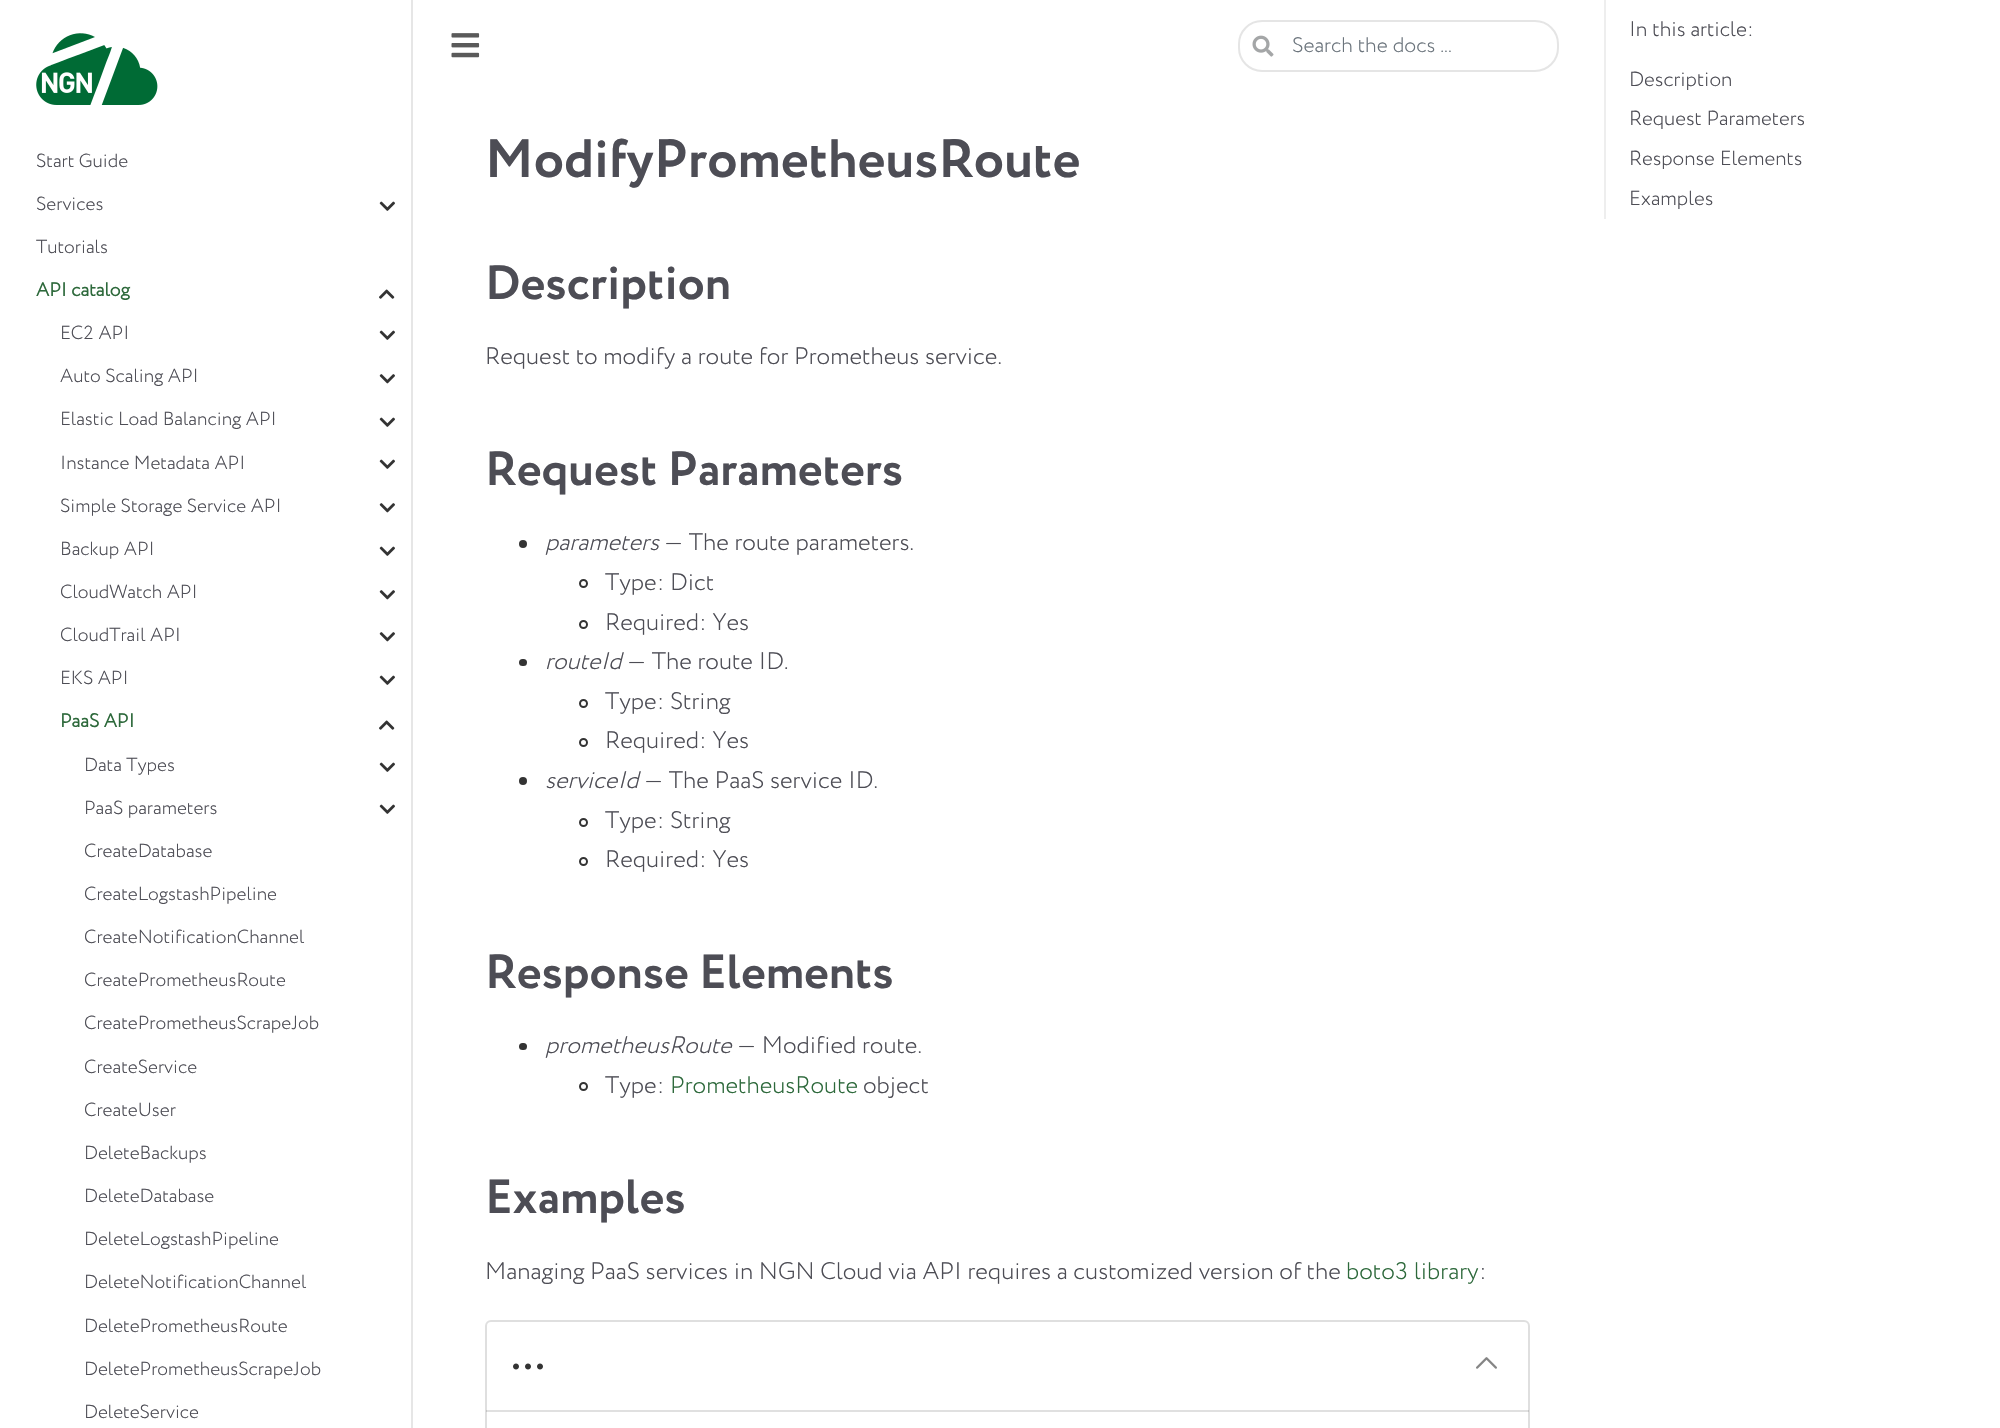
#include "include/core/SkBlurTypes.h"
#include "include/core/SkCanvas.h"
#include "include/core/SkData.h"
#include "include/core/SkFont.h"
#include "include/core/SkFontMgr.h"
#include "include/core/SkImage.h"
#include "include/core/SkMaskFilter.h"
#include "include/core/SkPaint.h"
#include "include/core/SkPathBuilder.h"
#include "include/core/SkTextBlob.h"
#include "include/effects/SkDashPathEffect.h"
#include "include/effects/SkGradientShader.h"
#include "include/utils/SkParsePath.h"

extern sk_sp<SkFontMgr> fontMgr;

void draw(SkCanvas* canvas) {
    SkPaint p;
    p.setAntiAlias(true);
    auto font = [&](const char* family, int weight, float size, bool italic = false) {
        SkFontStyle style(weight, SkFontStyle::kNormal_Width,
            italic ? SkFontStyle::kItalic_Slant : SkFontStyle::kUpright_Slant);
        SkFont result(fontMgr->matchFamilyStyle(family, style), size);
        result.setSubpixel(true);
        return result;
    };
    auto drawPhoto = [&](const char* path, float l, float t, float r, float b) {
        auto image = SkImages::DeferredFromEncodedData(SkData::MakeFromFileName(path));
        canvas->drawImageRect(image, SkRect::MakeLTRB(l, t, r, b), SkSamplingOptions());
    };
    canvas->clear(0xFFFFFFFF);
    p.setColor(0xFFE6E6E6);
    canvas->drawRect(SkRect::MakeLTRB(411, 0, 413, 1428), p);
    drawPhoto("media/1.png", 36, 33, 158, 105);
    auto font1 = font("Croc", 300, 18.9f);
    p.setColor(0xFF4D4D55);
    canvas->drawString("Start Guide", 36, 167, font1, p);
    canvas->drawString("Services", 36, 210, font1, p);
    drawPhoto("media/2.png", 379, 201, 395, 211);
    canvas->drawString("Tutorials", 36, 253, font1, p);
    auto font2 = font("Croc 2", 700, 18.9f);
    p.setColor(0xFF2D693B);
    canvas->drawString("API catalog", 36, 296, font2, p);
    drawPhoto("media/3.png", 379, 289, 395, 299);
    p.setColor(0xFF4D4D55);
    canvas->drawString("EC2 API", 60, 339, font1, p);
    drawPhoto("media/2.png", 379, 330, 395, 340);
    canvas->drawString("Auto Scaling API", 60, 382, font1, p);
    drawPhoto("media/4.png", 379, 374, 395, 384);
    canvas->drawString("Elastic Load Balancing API", 60, 425, font1, p);
    drawPhoto("media/2.png", 379, 417, 395, 427);
    canvas->drawString("Instance Metadata API", 60, 469, font1, p);
    drawPhoto("media/2.png", 379, 459, 395, 469);
    canvas->drawString("Simple Storage Service API", 60, 512, font1, p);
    drawPhoto("media/4.png", 379, 503, 395, 513);
    canvas->drawString("Backup API", 60, 555, font1, p);
    drawPhoto("media/2.png", 379, 546, 395, 556);
    canvas->drawString("CloudWatch API", 60, 598, font1, p);
    drawPhoto("media/4.png", 379, 590, 395, 600);
    canvas->drawString("CloudTrail API", 60, 641, font1, p);
    drawPhoto("media/4.png", 379, 632, 395, 642);
    canvas->drawString("EKS API", 60, 684, font1, p);
    drawPhoto("media/2.png", 379, 675, 395, 685);
    p.setColor(0xFF2D693B);
    canvas->drawString("PaaS API", 60, 727, font2, p);
    drawPhoto("media/5.png", 379, 720, 395, 730);
    p.setColor(0xFF4D4D55);
    canvas->drawString("Data Types", 84, 771, font1, p);
    drawPhoto("media/2.png", 379, 762, 395, 772);
    canvas->drawString("PaaS parameters", 84, 814, font1, p);
    drawPhoto("media/2.png", 379, 804, 395, 814);
    {
        const struct { const char* s; float x, y; } items[] = {
            {"CreateDatabase", 84, 857},
            {"CreateLogstashPipeline", 84, 900},
            {"CreateNotificationChannel", 84, 943},
            {"CreatePrometheusRoute", 84, 986},
            {"CreatePrometheusScrapeJob", 84, 1029},
            {"CreateService", 84, 1073},
            {"CreateUser", 84, 1116},
            {"DeleteBackups", 84, 1159},
            {"DeleteDatabase", 84, 1202},
            {"DeleteLogstashPipeline", 84, 1245},
            {"DeleteNotificationChannel", 84, 1288},
            {"DeletePrometheusRoute", 84, 1332},
            {"DeletePrometheusScrapeJob", 84, 1375},
            {"DeleteService", 84, 1418},
        };
        for (auto [s, x, y] : items) {
            canvas->drawString(s, x, y, font1, p);
        }
    }
    drawPhoto("media/6.png", 451, 33, 480, 58);
    p.setStyle(SkPaint::kStroke_Style);
    p.setStrokeWidth(2);
    p.setColor(0xFFE5E5E5);
    canvas->drawRoundRect(SkRect::MakeLTRB(1239, 21, 1558, 71), 23, 23, p);
    drawPhoto("media/7.png", 1252, 35, 1274, 57);
    auto font3 = font("Croc", 300, 21);
    p.setStyle(SkPaint::kFill_Style);
    p.setColor(0xFF6C757D);
    canvas->drawString("Search the docs ...", 1292, 52, font3, p);
    p.setColor(0xFFEEEEEE);
    canvas->drawRect(SkRect::MakeLTRB(1604, 0, 1606, 219), p);
    p.setColor(0xFF4D4D55);
    canvas->drawString("In this article:", 1629, 36, font3, p);
    auto font4 = font("Croc", 300, 20.5f);
    {
        const struct { const char* s; float x, y; } items[] = {
            {"Description", 1629, 86},
            {"Request Parameters", 1629, 125},
            {"Response Elements", 1629, 165},
            {"Examples", 1629, 205},
        };
        for (auto [s, x, y] : items) {
            canvas->drawString(s, x, y, font4, p);
        }
    }
    auto font5 = font("Croc", 700, 54);
    canvas->drawString("ModifyPrometheusRoute", 485, 177, font5, p);
    auto font6 = font("Croc", 700, 48);
    canvas->drawString("Description", 485, 299, font6, p);
    auto font7 = font("Croc", 300, 24);
    canvas->drawString("Request to modify a route for Prometheus service.", 485, 364, font7, p);
    canvas->drawString("Request Parameters", 485, 485, font6, p);
    p.setColor(0xFF333333);
    canvas->drawCircle(523, 544, 4, p);
    auto font8 = font("Croc", 300, 24, true);
    p.setColor(0xFF4D4D55);
    canvas->drawString("parameters", 545, 550, font8, p);
    canvas->drawString("— The route parameters.", 664, 550, font7, p);
    p.setStyle(SkPaint::kStroke_Style);
    p.setColor(0xFF333333);
    canvas->drawCircle(583.5f, 583.5f, 3.5f, p);
    p.setStyle(SkPaint::kFill_Style);
    p.setColor(0xFF4D4D55);
    canvas->drawString("Type: Dict", 605, 590, font7, p);
    p.setStyle(SkPaint::kStroke_Style);
    p.setColor(0xFF333333);
    canvas->drawCircle(583.5f, 624.5f, 3.5f, p);
    p.setStyle(SkPaint::kFill_Style);
    p.setColor(0xFF4D4D55);
    canvas->drawString("Required: Yes", 605, 630, font7, p);
    p.setColor(0xFF333333);
    canvas->drawRoundRect(SkRect::MakeLTRB(519, 659, 527, 666), 3.5f, 3.5f, p);
    p.setColor(0xFF4D4D55);
    canvas->drawString("routeId", 545, 669, font8, p);
    canvas->drawString("— The route ID.", 627, 669, font7, p);
    p.setStyle(SkPaint::kStroke_Style);
    p.setColor(0xFF333333);
    canvas->drawCircle(583.5f, 703.5f, 3.5f, p);
    p.setStyle(SkPaint::kFill_Style);
    p.setColor(0xFF4D4D55);
    canvas->drawString("Type: String", 605, 709, font7, p);
    p.setStyle(SkPaint::kStroke_Style);
    p.setColor(0xFF333333);
    canvas->drawCircle(583.5f, 742.5f, 3.5f, p);
    p.setStyle(SkPaint::kFill_Style);
    p.setColor(0xFF4D4D55);
    canvas->drawString("Required: Yes", 605, 748, font7, p);
    p.setColor(0xFF333333);
    canvas->drawCircle(523, 781, 4, p);
    p.setColor(0xFF4D4D55);
    canvas->drawString("serviceId", 545, 788, font8, p);
    canvas->drawString("— The PaaS service ID.", 644, 788, font7, p);
    p.setStyle(SkPaint::kStroke_Style);
    p.setColor(0xFF333333);
    canvas->drawCircle(583.5f, 822.5f, 3.5f, p);
    p.setStyle(SkPaint::kFill_Style);
    p.setColor(0xFF4D4D55);
    canvas->drawString("Type: String", 605, 828, font7, p);
    p.setStyle(SkPaint::kStroke_Style);
    p.setColor(0xFF333333);
    canvas->drawCircle(583.5f, 861.5f, 3.5f, p);
    p.setStyle(SkPaint::kFill_Style);
    p.setColor(0xFF4D4D55);
    canvas->drawString("Required: Yes", 605, 867, font7, p);
    canvas->drawString("Response Elements", 485, 988, font6, p);
    p.setColor(0xFF333333);
    canvas->drawRoundRect(SkRect::MakeLTRB(519, 1043, 527, 1050), 3.5f, 3.5f, p);
    p.setColor(0xFF4D4D55);
    canvas->drawString("prometheusRoute", 545, 1053, font8, p);
    canvas->drawString("— Modified route.", 737, 1053, font7, p);
    p.setStyle(SkPaint::kStroke_Style);
    p.setColor(0xFF333333);
    canvas->drawCircle(583.5f, 1086.5f, 3.5f, p);
    p.setStyle(SkPaint::kFill_Style);
    p.setColor(0xFF4D4D55);
    canvas->drawString("Type:", 605, 1093, font7, p);
    p.setColor(0xFF2D693B);
    canvas->drawString("PrometheusRoute", 670, 1093, font7, p);
    p.setColor(0xFF4D4D55);
    canvas->drawString("object", 863, 1093, font7, p);
    canvas->drawString("Examples", 485, 1213, font6, p);
    canvas->drawString("Managing PaaS services in NGN Cloud via API requires a customized version of the", 485, 1279, font7, p);
    p.setColor(0xFF2D693B);
    canvas->drawString("boto3 library", 1346, 1279, font7, p);
    p.setColor(0xFF4D4D55);
    canvas->drawString(":", 1479, 1279, font7, p);
    p.setStyle(SkPaint::kStroke_Style);
    p.setColor(0xFFDFDFDF);
    canvas->drawRoundRect(SkRect::MakeLTRB(486, 1321, 1529, 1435), 5, 5, p);
    p.setStyle(SkPaint::kFill_Style);
    p.setColor(0x1F000000);
    canvas->drawRect(SkRect::MakeLTRB(486, 1410, 1529, 1412), p);
    drawPhoto("media/8.png", 513, 1363, 543, 1370);
    drawPhoto("media/9.png", 1476, 1357, 1497, 1369);
}
